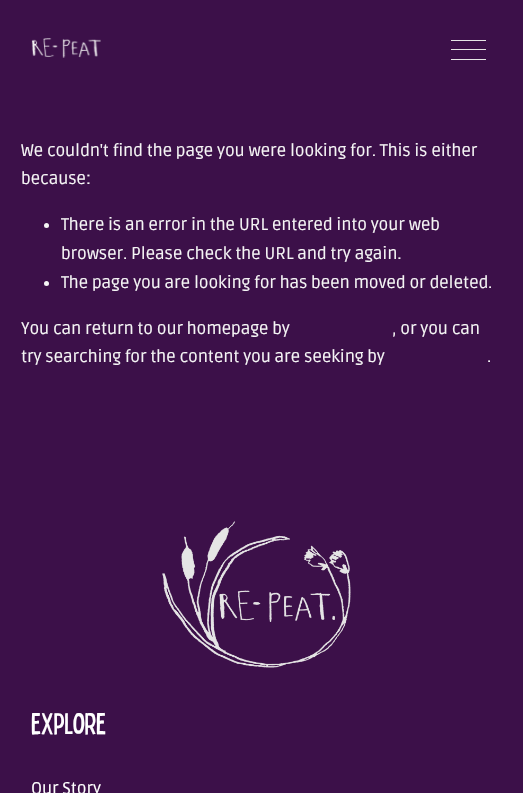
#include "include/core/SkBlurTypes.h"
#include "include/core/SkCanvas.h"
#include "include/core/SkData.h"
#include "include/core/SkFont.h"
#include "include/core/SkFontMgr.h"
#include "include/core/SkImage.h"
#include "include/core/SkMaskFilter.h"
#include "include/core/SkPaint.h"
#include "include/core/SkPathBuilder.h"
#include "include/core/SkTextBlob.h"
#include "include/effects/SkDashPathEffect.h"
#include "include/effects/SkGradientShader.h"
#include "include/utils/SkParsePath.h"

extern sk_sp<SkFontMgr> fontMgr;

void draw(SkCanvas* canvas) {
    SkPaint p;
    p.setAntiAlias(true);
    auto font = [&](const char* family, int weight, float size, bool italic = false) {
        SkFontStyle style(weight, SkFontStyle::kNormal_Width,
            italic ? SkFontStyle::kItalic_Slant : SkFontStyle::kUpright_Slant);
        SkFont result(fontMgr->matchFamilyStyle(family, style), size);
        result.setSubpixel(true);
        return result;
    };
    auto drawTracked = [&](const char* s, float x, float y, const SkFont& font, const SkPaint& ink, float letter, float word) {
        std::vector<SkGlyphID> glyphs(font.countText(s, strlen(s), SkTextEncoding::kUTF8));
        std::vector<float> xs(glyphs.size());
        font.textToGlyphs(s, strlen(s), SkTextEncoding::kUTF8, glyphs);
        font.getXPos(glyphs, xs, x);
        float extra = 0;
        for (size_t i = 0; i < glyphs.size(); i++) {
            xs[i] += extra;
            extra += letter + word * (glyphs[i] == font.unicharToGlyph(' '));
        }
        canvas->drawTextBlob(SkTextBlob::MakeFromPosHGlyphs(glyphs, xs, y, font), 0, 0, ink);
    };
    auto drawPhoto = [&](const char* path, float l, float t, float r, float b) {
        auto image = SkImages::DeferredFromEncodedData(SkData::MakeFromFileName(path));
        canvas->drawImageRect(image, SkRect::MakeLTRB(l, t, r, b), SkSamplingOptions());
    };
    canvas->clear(0xFF3C1049);
    drawPhoto("media/1.png", 31, 38, 101, 58);
    {
        const struct { float l, t, r, b; SkColor color; } items[] = {
            {451, 40, 486, 41, 0xFFE6E6E6},
            {451, 49, 486, 50, 0xFFE6E6E6},
            {451, 59, 486, 60, 0xFFE6E6E6},
        };
        for (auto [l, t, r, b, color] : items) {
            p.setColor(color);
            canvas->drawRect(SkRect::MakeLTRB(l, t, r, b), p);
        }
    }
    auto font1 = font("Ruda", 400, 16.95f);
    p.setColor(0xFFF5F5F5);
    drawTracked("We couldn't find the page you were looking for. This is either", 21, 156, font1, p, -0.17f, 0);
    drawTracked("because:", 21, 184, font1, p, -0.17f, 0);
    canvas->drawCircle(46.5f, 225.5f, 2.5f, p);
    drawTracked("There is an error in the URL entered into your web", 61, 230, font1, p, -0.17f, 0);
    drawTracked("browser. Please check the URL and try again.", 61, 259, font1, p, -0.17f, 0);
    canvas->drawCircle(46.5f, 283.5f, 2.5f, p);
    {
        const struct { const char* s; float x, y; } items[] = {
            {"The page you are looking for has been moved or deleted.", 61, 288},
            {"You can return to our homepage by", 21, 334},
            {", or you can", 392, 334},
            {"try searching for the content you are seeking by", 21, 362},
            {".", 487, 362},
        };
        for (auto [s, x, y] : items) {
            drawTracked(s, x, y, font1, p, -0.17f, 0);
        }
    }
    drawPhoto("media/2.png", 162, 521, 351, 668);
    auto font2 = font("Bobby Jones", 400, 30);
    p.setColor(0xFFFFFFFF);
    drawTracked("Explore", 31, 734, font2, p, -0.25f, 0);
    drawTracked("Our Story", 31, 794, font1, p, -0.17f, 0);
}
